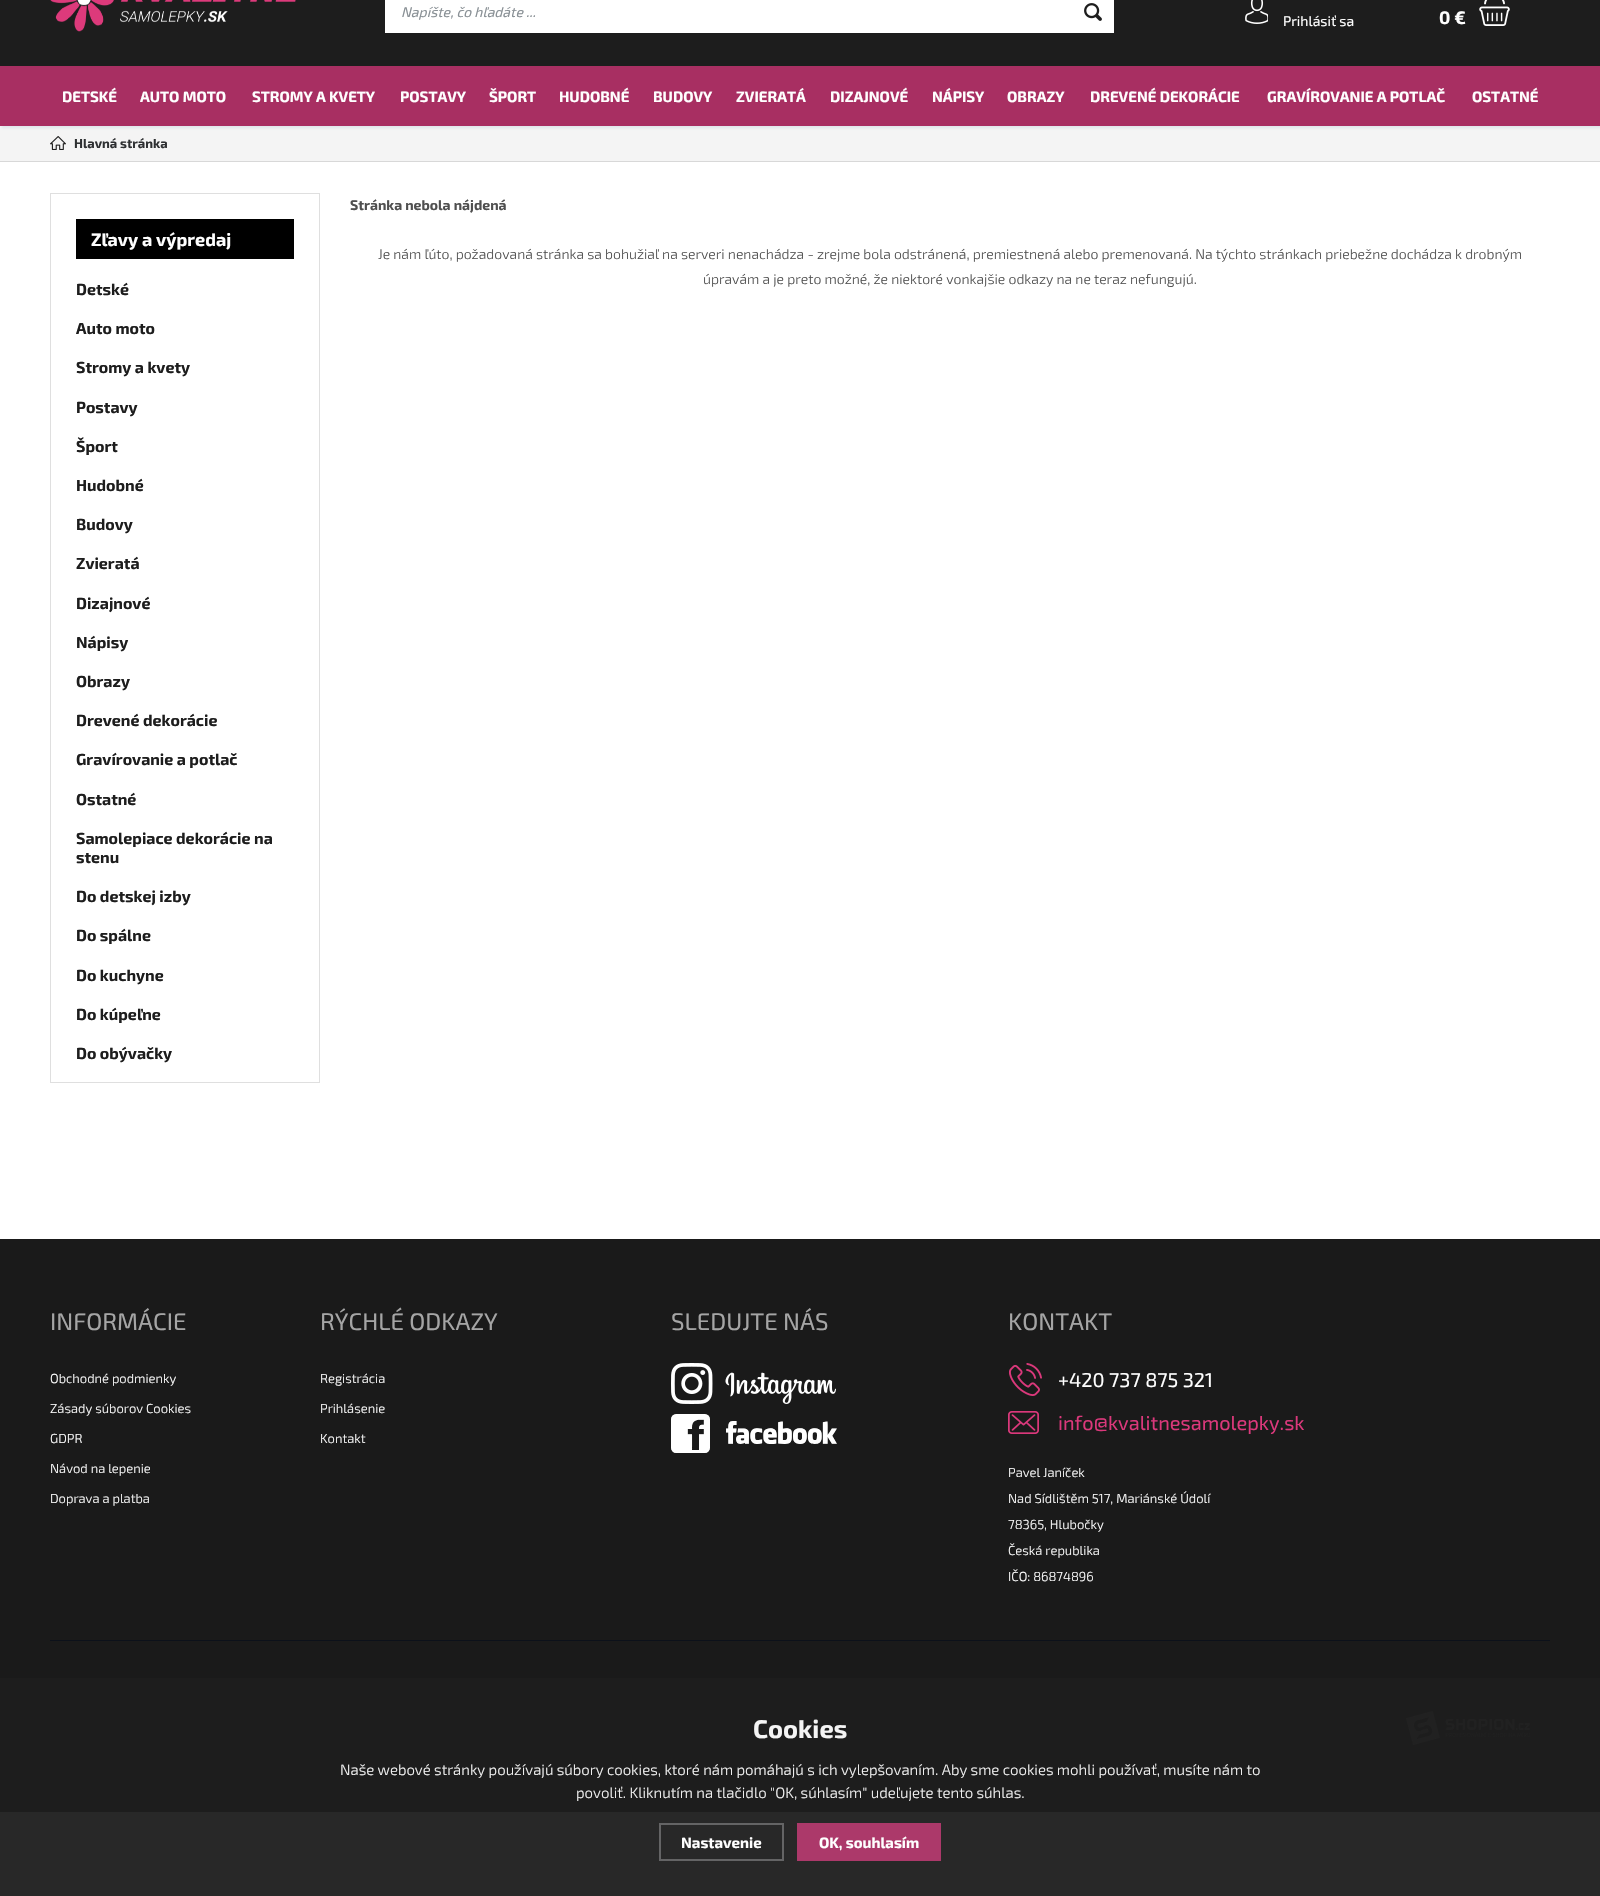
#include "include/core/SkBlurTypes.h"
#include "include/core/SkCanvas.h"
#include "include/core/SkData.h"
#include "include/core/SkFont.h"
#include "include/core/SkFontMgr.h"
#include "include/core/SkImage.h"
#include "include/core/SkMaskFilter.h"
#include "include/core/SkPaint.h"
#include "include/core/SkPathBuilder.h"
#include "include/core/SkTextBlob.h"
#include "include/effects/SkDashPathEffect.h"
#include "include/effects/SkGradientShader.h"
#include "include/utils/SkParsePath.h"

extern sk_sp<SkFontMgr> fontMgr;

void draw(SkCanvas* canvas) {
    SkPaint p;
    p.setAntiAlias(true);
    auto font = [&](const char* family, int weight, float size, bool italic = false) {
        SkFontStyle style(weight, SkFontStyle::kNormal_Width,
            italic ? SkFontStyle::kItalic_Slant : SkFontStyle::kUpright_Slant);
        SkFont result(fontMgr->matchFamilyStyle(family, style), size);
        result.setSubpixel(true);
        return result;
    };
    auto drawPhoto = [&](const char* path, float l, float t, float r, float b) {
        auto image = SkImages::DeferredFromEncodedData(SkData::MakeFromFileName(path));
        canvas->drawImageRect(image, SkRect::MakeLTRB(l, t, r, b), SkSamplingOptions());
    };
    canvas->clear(0xFFFFFFFF);
    p.setColor(0xFF282828);
    canvas->drawRect(SkRect::MakeLTRB(0, 1812, 1600, 1896), p);
    p.setColor(0xFFF4F4F4);
    canvas->drawRect(SkRect::MakeLTRB(0, 126, 1600, 161), p);
    p.setColor(0x14004A81);
    p.setMaskFilter(SkMaskFilter::MakeBlur(kNormal_SkBlurStyle, 1));
    canvas->drawRect(SkRect::MakeLTRB(2, -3, 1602, 128), p);
    p.setMaskFilter(nullptr);
    p.setColor(0xFF1D1D1D);
    canvas->drawRect(SkRect::MakeLTRB(0, 0, 1600, 66), p);
    drawPhoto("media/1.png", 50, 0, 296, 32);
    p.setColor(0xFFFFFFFF);
    canvas->drawRect(SkRect::MakeLTRB(385, 0, 1114, 33), p);
    auto font1 = font("Exo 2", 400, 14, true);
    p.setColor(0xFF899095);
    canvas->drawString("Napíšte, čo hľadáte ...", 401, 17, font1, p);
    drawPhoto("media/2.png", 1084, 3, 1102, 21);
    drawPhoto("media/3.png", 1245, 0, 1268, 24);
    auto font2 = font("Exo 2", 400, 14);
    p.setColor(0xFFFFFFFF);
    canvas->drawString("Prihlásiť sa", 1283, 26, font2, p);
    auto font3 = font("Exo 2", 700, 18);
    canvas->drawString("0 €", 1439, 24, font3, p);
    drawPhoto("media/4.png", 1479, 0, 1510, 26);
    p.setColor(0xFFA82F62);
    canvas->drawRect(SkRect::MakeLTRB(0, 66, 1600, 126), p);
    auto font4 = font("Exo 2", 700, 15);
    p.setColor(0xFFFFFFFF);
    {
        const struct { const char* s; float x, y; } items[] = {
            {"DETSKÉ", 62, 102},
            {"AUTO MOTO", 140, 102},
            {"STROMY A KVETY", 252, 102},
            {"POSTAVY", 400, 102},
            {"ŠPORT", 489, 102},
            {"HUDOBNÉ", 559, 102},
            {"BUDOVY", 653, 102},
            {"ZVIERATÁ", 736, 102},
            {"DIZAJNOVÉ", 830, 102},
            {"NÁPISY", 932, 102},
            {"OBRAZY", 1007, 102},
            {"DREVENÉ DEKORÁCIE", 1090, 102},
            {"GRAVÍROVANIE A POTLAČ", 1267, 102},
            {"OSTATNÉ", 1472, 102},
        };
        for (auto [s, x, y] : items) {
            canvas->drawString(s, x, y, font4, p);
        }
    }
    p.setColor(0xFFD8D8D8);
    canvas->drawRect(SkRect::MakeLTRB(0, 161, 1600, 162), p);
    drawPhoto("media/5.png", 50, 136, 66, 150);
    auto font5 = font("Exo 2", 700, 13);
    p.setColor(0xFF2E3032);
    canvas->drawString("Hlavná stránka", 74, 148, font5, p);
    p.setStyle(SkPaint::kStroke_Style);
    p.setStrokeWidth(1);
    p.setColor(0xFFDFDFDF);
    canvas->drawRect(SkRect::MakeLTRB(50.5f, 193.5f, 319.5f, 1082.5f), p);
    p.setStyle(SkPaint::kFill_Style);
    p.setColor(0xFF000000);
    canvas->drawRect(SkRect::MakeLTRB(76, 219, 294, 259), p);
    p.setColor(0xFFFFFFFF);
    canvas->drawString("Zľavy a výpredaj", 91, 246, font3, p);
    auto font6 = font("Exo 2", 700, 16);
    p.setColor(0xFF1D1D1D);
    {
        const struct { const char* s; float x, y; } items[] = {
            {"Detské", 76, 295},
            {"Auto moto", 76, 334},
            {"Stromy a kvety", 76, 373},
            {"Postavy", 76, 413},
            {"Šport", 76, 452},
            {"Hudobné", 76, 491},
            {"Budovy", 76, 530},
            {"Zvieratá", 76, 569},
            {"Dizajnové", 76, 609},
            {"Nápisy", 76, 648},
            {"Obrazy", 76, 687},
            {"Drevené dekorácie", 76, 726},
            {"Gravírovanie a potlač", 76, 765},
            {"Ostatné", 76, 805},
            {"Samolepiace dekorácie na", 76, 844},
            {"stenu", 76, 863},
            {"Do detskej izby", 76, 902},
            {"Do spálne", 76, 941},
            {"Do kuchyne", 76, 981},
            {"Do kúpeľne", 76, 1020},
            {"Do obývačky", 76, 1059},
        };
        for (auto [s, x, y] : items) {
            canvas->drawString(s, x, y, font6, p);
        }
    }
    auto font7 = font("Exo 2", 700, 14);
    p.setColor(0xFF4F4F4F);
    canvas->drawString("Stránka nebola nájdená", 350, 210, font7, p);
    auto font8 = font("Exo 2", 300, 14);
    canvas->drawString("Je nám ľúto, požadovaná stránka sa bohužiaľ na serveri nenachádza - zrejme bola odstránená, premiestnená alebo premenovaná. Na týchto stránkach priebežne dochádza k drobným", 378, 259, font8, p);
    canvas->drawString("úpravám a je preto možné, že niektoré vonkajšie odkazy na ne teraz nefungujú.", 703, 284, font8, p);
    p.setColor(0xFF1A1A1A);
    canvas->drawRect(SkRect::MakeLTRB(0, 1239, 1600, 1678), p);
    p.setColor(0xFF1D1D1D);
    canvas->drawRect(SkRect::MakeLTRB(0, 1678, 1600, 1812), p);
    auto font9 = font("Exo 2", 400, 24);
    p.setColor(0xFFA5A5A5);
    canvas->drawString("INFORMÁCIE", 50, 1330, font9, p);
    auto font10 = font("Exo 2", 300, 13);
    p.setColor(0xFFFFFFFF);
    {
        const struct { const char* s; float x, y; } items[] = {
            {"Obchodné podmienky", 50, 1383},
            {"Zásady súborov Cookies", 50, 1413},
            {"GDPR", 50, 1443},
            {"Návod na lepenie", 50, 1473},
            {"Doprava a platba", 50, 1503},
        };
        for (auto [s, x, y] : items) {
            canvas->drawString(s, x, y, font10, p);
        }
    }
    p.setColor(0xFFA5A5A5);
    canvas->drawString("RÝCHLÉ ODKAZY", 320, 1330, font9, p);
    p.setColor(0xFFFFFFFF);
    {
        const struct { const char* s; float x, y; } items[] = {
            {"Registrácia", 320, 1383},
            {"Prihlásenie", 320, 1413},
            {"Kontakt", 320, 1443},
        };
        for (auto [s, x, y] : items) {
            canvas->drawString(s, x, y, font10, p);
        }
    }
    p.setColor(0xFFA5A5A5);
    canvas->drawString("SLEDUJTE NÁS", 671, 1330, font9, p);
    drawPhoto("media/6.png", 671, 1363, 836, 1404);
    drawPhoto("media/7.png", 671, 1414, 837, 1453);
    canvas->drawString("KONTAKT", 1008, 1330, font9, p);
    drawPhoto("media/8.png", 1009, 1363, 1042, 1396);
    auto font11 = font("Exo 2", 400, 20);
    p.setColor(0xFFFFFFFF);
    canvas->drawString("+420 737 875 321", 1058, 1387, font11, p);
    drawPhoto("media/9.png", 1008, 1411, 1039, 1434);
    p.setColor(0xFFDB387B);
    canvas->drawString("info@kvalitnesamolepky.sk", 1058, 1430, font11, p);
    p.setColor(0xFFFFFFFF);
    {
        const struct { const char* s; float x, y; } items[] = {
            {"Pavel Janíček", 1008, 1477},
            {"Nad Sídlištěm 517, Mariánské Údolí", 1008, 1503},
            {"78365, Hlubočky", 1008, 1529},
            {"Česká republika", 1008, 1555},
            {"IČO: 86874896", 1008, 1581},
        };
        for (auto [s, x, y] : items) {
            canvas->drawString(s, x, y, font10, p);
        }
    }
    p.setColor(0xFF0C111A);
    canvas->drawRect(SkRect::MakeLTRB(50, 1640, 1550, 1641), p);
    drawPhoto("media/10.png", 1406, 1711, 1530, 1745);
    auto font12 = font("Exo 2", 700, 25.5f);
    p.setColor(0xFFF4F4F4);
    canvas->drawString("Cookies", 753, 1738, font12, p);
    auto font13 = font("Exo 2", 300, 15);
    canvas->drawString("Naše webové stránky používajú súbory cookies, ktoré nám pomáhajú s ich vylepšovaním. Aby sme cookies mohli používať, musíte nám to", 340, 1775, font13, p);
    canvas->drawString("povoliť. Kliknutím na tlačidlo \"OK, súhlasím\" udeľujete tento súhlas.", 576, 1798, font13, p);
    p.setStyle(SkPaint::kStroke_Style);
    p.setStrokeWidth(2);
    p.setColor(0xFF646465);
    canvas->drawRect(SkRect::MakeLTRB(660, 1824, 783, 1860), p);
    p.setStyle(SkPaint::kFill_Style);
    p.setColor(0xFFFFFFFF);
    canvas->drawString("Nastavenie", 681, 1848, font4, p);
    p.setColor(0xFFAC396A);
    canvas->drawRect(SkRect::MakeLTRB(797, 1823, 941, 1861), p);
    p.setColor(0xFFFFFFFF);
    canvas->drawString("OK, souhlasím", 819, 1848, font4, p);
}
